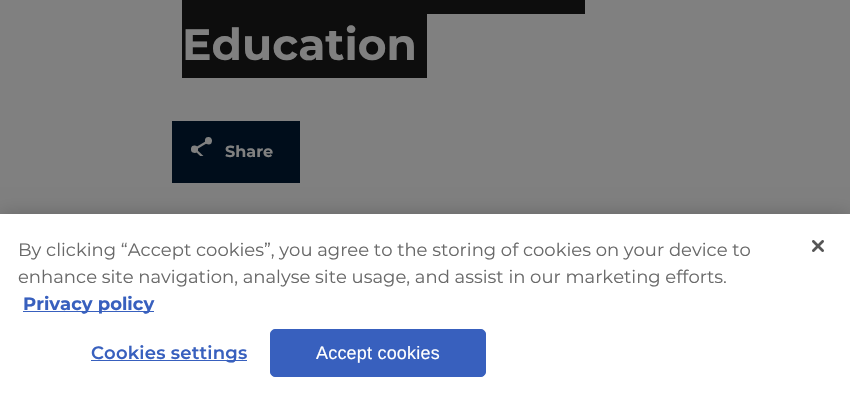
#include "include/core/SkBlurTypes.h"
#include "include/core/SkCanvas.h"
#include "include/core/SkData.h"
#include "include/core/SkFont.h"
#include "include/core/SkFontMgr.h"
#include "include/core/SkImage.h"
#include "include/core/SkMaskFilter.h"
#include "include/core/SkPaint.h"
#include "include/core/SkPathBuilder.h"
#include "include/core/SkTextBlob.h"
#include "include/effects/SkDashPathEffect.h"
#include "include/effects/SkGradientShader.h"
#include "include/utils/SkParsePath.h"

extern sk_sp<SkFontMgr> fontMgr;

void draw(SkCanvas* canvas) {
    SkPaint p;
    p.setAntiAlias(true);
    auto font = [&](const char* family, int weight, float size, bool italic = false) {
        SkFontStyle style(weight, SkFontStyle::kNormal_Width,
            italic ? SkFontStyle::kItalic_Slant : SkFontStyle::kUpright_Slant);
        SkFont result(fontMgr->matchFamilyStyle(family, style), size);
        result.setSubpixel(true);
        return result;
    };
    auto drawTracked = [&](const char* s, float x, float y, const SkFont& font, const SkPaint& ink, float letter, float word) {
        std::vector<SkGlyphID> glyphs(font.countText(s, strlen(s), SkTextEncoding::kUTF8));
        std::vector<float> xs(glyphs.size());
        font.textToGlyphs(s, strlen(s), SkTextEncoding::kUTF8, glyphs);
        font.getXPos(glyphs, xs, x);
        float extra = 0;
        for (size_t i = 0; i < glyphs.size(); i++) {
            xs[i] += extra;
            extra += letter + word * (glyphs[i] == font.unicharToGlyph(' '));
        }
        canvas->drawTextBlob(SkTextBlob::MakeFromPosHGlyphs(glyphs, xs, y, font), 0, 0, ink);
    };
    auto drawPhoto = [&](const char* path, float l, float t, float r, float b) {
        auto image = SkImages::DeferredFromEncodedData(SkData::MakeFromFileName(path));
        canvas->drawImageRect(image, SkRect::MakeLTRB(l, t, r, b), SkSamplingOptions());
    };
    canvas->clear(0xFF808080);
    p.setColor(0xFF0D0D0D);
    canvas->drawRect(SkRect::MakeLTRB(182, 14, 427, 78), p);
    auto font1 = font("Montserrat", 700, 44);
    p.setColor(0xFF808080);
    canvas->drawString("Education", 182, 60, font1, p);
    p.setColor(0xFF0D0D0D);
    canvas->drawRect(SkRect::MakeLTRB(182, 0, 585, 14), p);
    p.setColor(0xFF000D1B);
    canvas->drawRect(SkRect::MakeLTRB(172, 121, 300, 183), p);
    drawPhoto("media/1.png", 191, 137, 212, 156);
    auto font2 = font("Montserrat", 700, 16);
    p.setColor(0xFF808080);
    canvas->drawString("Share", 225, 157, font2, p);
    p.setColor(0x33000000);
    p.setMaskFilter(SkMaskFilter::MakeBlur(kNormal_SkBlurStyle, 9));
    canvas->drawRect(SkRect::MakeLTRB(0, 214, 850, 393), p);
    p.setMaskFilter(nullptr);
    p.setColor(0xFFFFFFFF);
    canvas->drawRect(SkRect::MakeLTRB(0, 214, 850, 393), p);
    auto font3 = font("Montserrat", 400, 18);
    p.setColor(0xFF696969);
    canvas->drawString("By clicking “Accept cookies”, you agree to the storing of cookies on your device to", 18, 256, font3, p);
    canvas->drawString("enhance site navigation, analyse site usage, and assist in our marketing efforts.", 18, 283, font3, p);
    p.setColor(0xFF3860BE);
    canvas->drawRect(SkRect::MakeLTRB(23, 311, 154, 312), p);
    auto font4 = font("Montserrat", 700, 18);
    canvas->drawString("Privacy policy", 23, 310, font4, p);
    canvas->drawRect(SkRect::MakeLTRB(91, 360, 247, 361), p);
    auto font5 = font("Montserrat", 600, 18);
    drawTracked("Cookies settings", 91, 359, font5, p, 0.2f, 0);
    canvas->drawRoundRect(SkRect::MakeLTRB(270.5f, 329.5f, 485.5f, 376.5f), 4.5f, 4.5f, p);
    p.setStyle(SkPaint::kStroke_Style);
    p.setStrokeWidth(1);
    canvas->drawRoundRect(SkRect::MakeLTRB(270.5f, 329.5f, 485.5f, 376.5f), 4.5f, 4.5f, p);
    auto font6 = font("Liberation Sans", 400, 18);
    p.setStyle(SkPaint::kFill_Style);
    p.setColor(0xFFFFFFFF);
    drawTracked("Accept cookies", 316, 359, font6, p, 0.2f, 0);
    drawPhoto("media/2.png", 812, 240, 824, 252);
}
